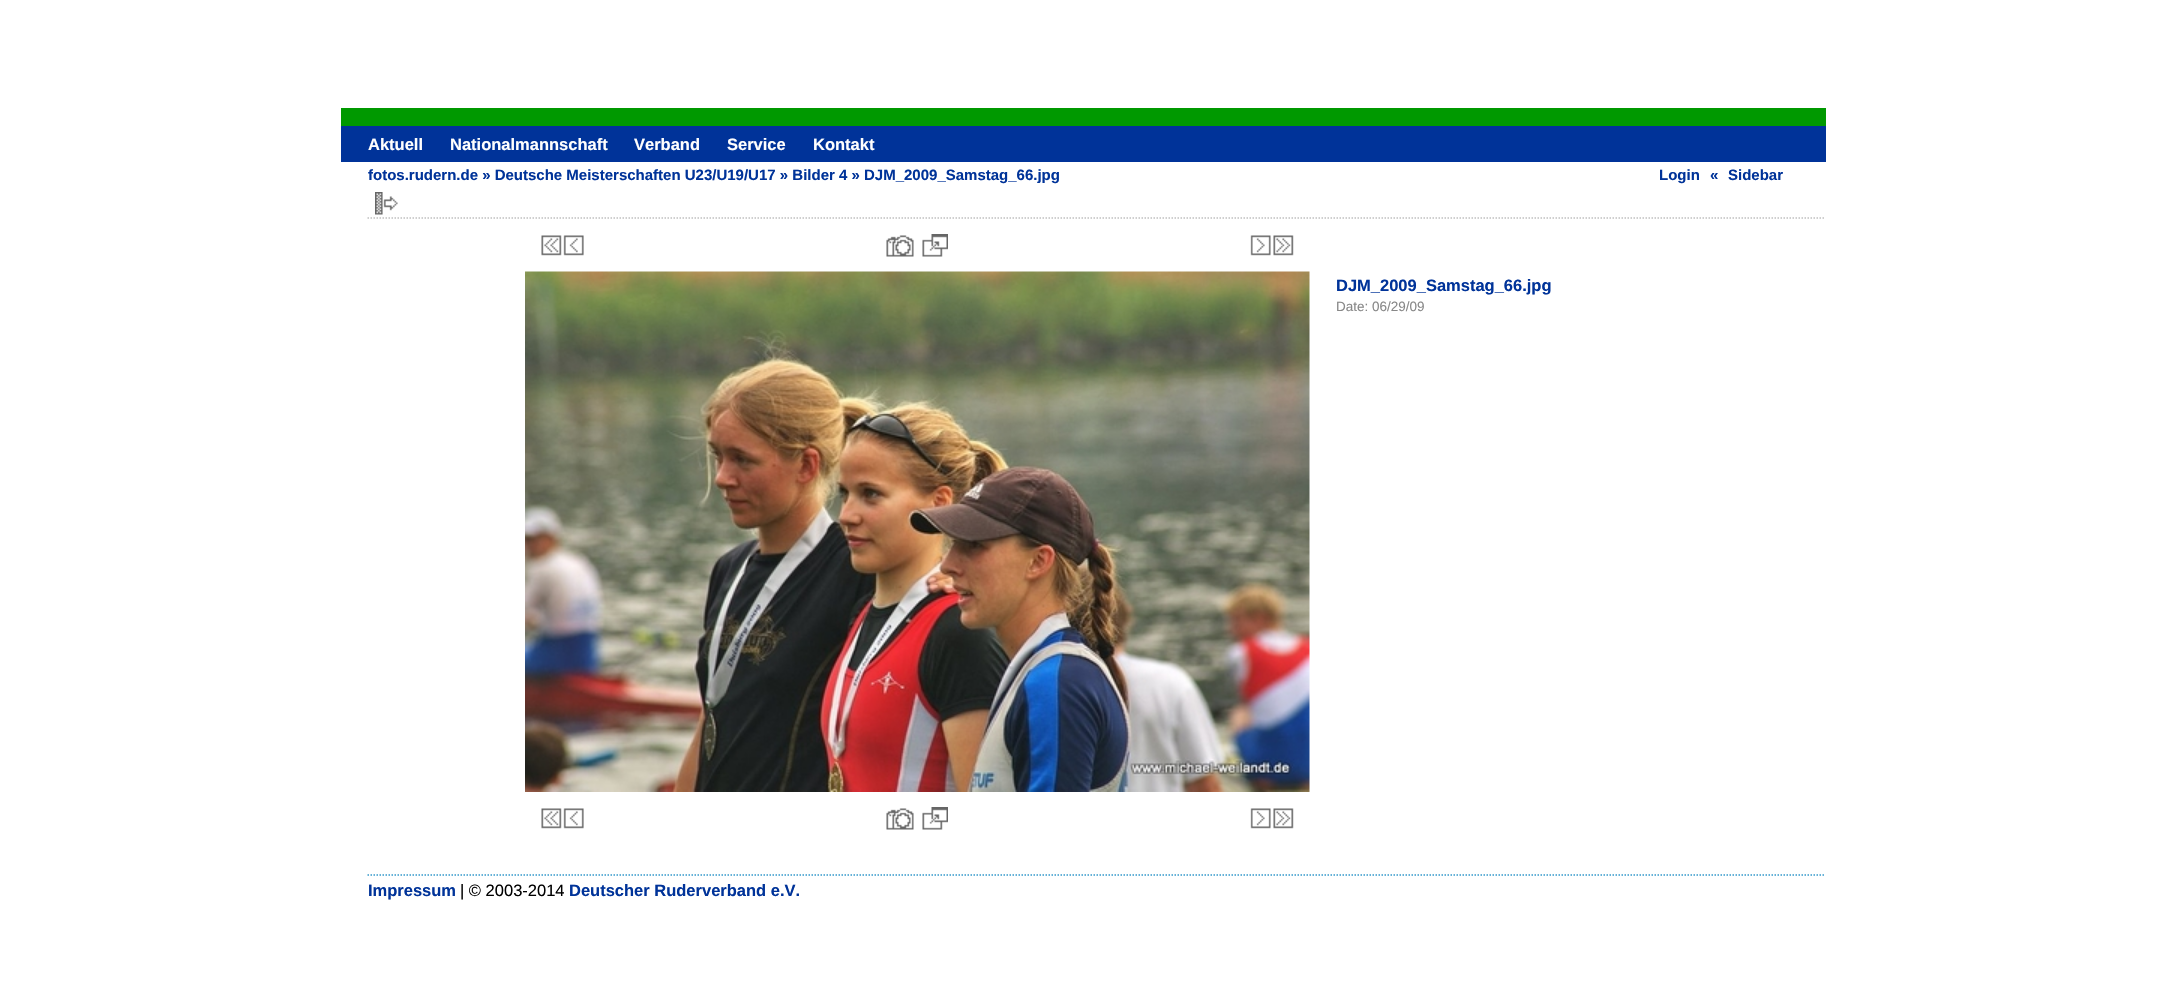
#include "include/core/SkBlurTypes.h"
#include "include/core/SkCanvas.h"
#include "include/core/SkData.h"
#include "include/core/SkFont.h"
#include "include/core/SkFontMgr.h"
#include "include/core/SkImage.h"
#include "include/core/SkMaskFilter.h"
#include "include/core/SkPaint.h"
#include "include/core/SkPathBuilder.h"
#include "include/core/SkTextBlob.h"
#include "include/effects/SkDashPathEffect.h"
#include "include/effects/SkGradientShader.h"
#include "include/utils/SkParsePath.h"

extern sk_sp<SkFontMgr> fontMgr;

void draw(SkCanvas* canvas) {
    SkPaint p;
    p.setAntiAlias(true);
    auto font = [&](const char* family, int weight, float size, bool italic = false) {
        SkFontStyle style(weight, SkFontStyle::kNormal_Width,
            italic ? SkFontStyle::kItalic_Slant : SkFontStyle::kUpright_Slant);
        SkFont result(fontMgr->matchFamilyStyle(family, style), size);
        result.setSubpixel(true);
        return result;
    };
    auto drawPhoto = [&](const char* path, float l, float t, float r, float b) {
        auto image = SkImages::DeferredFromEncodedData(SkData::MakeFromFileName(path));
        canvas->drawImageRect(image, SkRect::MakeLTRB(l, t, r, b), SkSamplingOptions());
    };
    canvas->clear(0xFFFFFFFF);
    p.setColor(0xFF003399);
    canvas->drawRect(SkRect::MakeLTRB(341, 126, 1826, 162), p);
    p.setColor(0xFF009900);
    canvas->drawRect(SkRect::MakeLTRB(341, 108, 1826, 126), p);
    auto font1 = font("Liberation Sans", 700, 16.5f);
    p.setColor(0xFFFFFFFF);
    {
        const struct { const char* s; float x, y; } items[] = {
            {"Aktuell", 368, 150},
            {"Nationalmannschaft", 450, 150},
            {"Verband", 634, 150},
            {"Service", 727, 150},
            {"Kontakt", 813, 150},
        };
        for (auto [s, x, y] : items) {
            canvas->drawString(s, x, y, font1, p);
        }
    }
    auto font2 = font("Liberation Sans", 700, 15);
    p.setColor(0xFF003399);
    {
        const struct { const char* s; float x, y; } items[] = {
            {"fotos.rudern.de » Deutsche Meisterschaften U23/U19/U17 » Bilder 4 » DJM_2009_Samstag_66.jpg", 368, 180},
            {"Login", 1659, 180},
            {"«", 1710, 180},
            {"Sidebar", 1728, 180},
        };
        for (auto [s, x, y] : items) {
            canvas->drawString(s, x, y, font2, p);
        }
    }
    p.setStyle(SkPaint::kStroke_Style);
    p.setStrokeWidth(1.5f);
    p.setColor(0xFFC0C0C0);
    p.setPathEffect(SkDashPathEffect::Make({{1.5f, 1.5f}}, 0));
    canvas->drawPath(SkPathBuilder().moveTo(367.5f, 218).lineTo(1825.5f, 218).detach(), p);
    p.setPathEffect(nullptr);
    drawPhoto("media/1.png", 375, 192, 398, 215);
    drawPhoto("media/2.png", 541, 235, 562, 256);
    drawPhoto("media/3.png", 563, 235, 584, 256);
    drawPhoto("media/4.png", 886, 235, 914, 257);
    drawPhoto("media/5.png", 922, 234, 948, 257);
    drawPhoto("media/6.png", 1250, 235, 1271, 256);
    drawPhoto("media/7.png", 1273, 235, 1294, 256);
    drawPhoto("media/8.png", 525, 271, 1310, 792);
    p.setStyle(SkPaint::kFill_Style);
    p.setColor(0xFF003399);
    canvas->drawString("DJM_2009_Samstag_66.jpg", 1336, 291, font1, p);
    auto font3 = font("Liberation Sans", 400, 13.5f);
    p.setColor(0xFF888888);
    canvas->drawString("Date: 06/29/09", 1336, 311, font3, p);
    drawPhoto("media/2.png", 541, 808, 562, 829);
    drawPhoto("media/3.png", 563, 808, 584, 829);
    drawPhoto("media/4.png", 886, 808, 914, 830);
    drawPhoto("media/5.png", 922, 807, 948, 830);
    drawPhoto("media/6.png", 1250, 808, 1271, 829);
    drawPhoto("media/7.png", 1273, 808, 1294, 829);
    p.setStyle(SkPaint::kStroke_Style);
    p.setColor(0xFF3399CC);
    p.setPathEffect(SkDashPathEffect::Make({{1.5f, 1.5f}}, 0));
    canvas->drawPath(SkPathBuilder().moveTo(367.5f, 875).lineTo(1825.5f, 875).detach(), p);
    p.setPathEffect(nullptr);
    p.setStyle(SkPaint::kFill_Style);
    p.setColor(0xFF003399);
    canvas->drawString("Impressum", 368, 896, font1, p);
    auto font4 = font("Liberation Sans", 400, 16.5f);
    p.setColor(0xFF000000);
    canvas->drawString("| © 2003-2014", 460, 896, font4, p);
    p.setColor(0xFF003399);
    canvas->drawString("Deutscher Ruderverband e.V.", 569, 896, font1, p);
}
